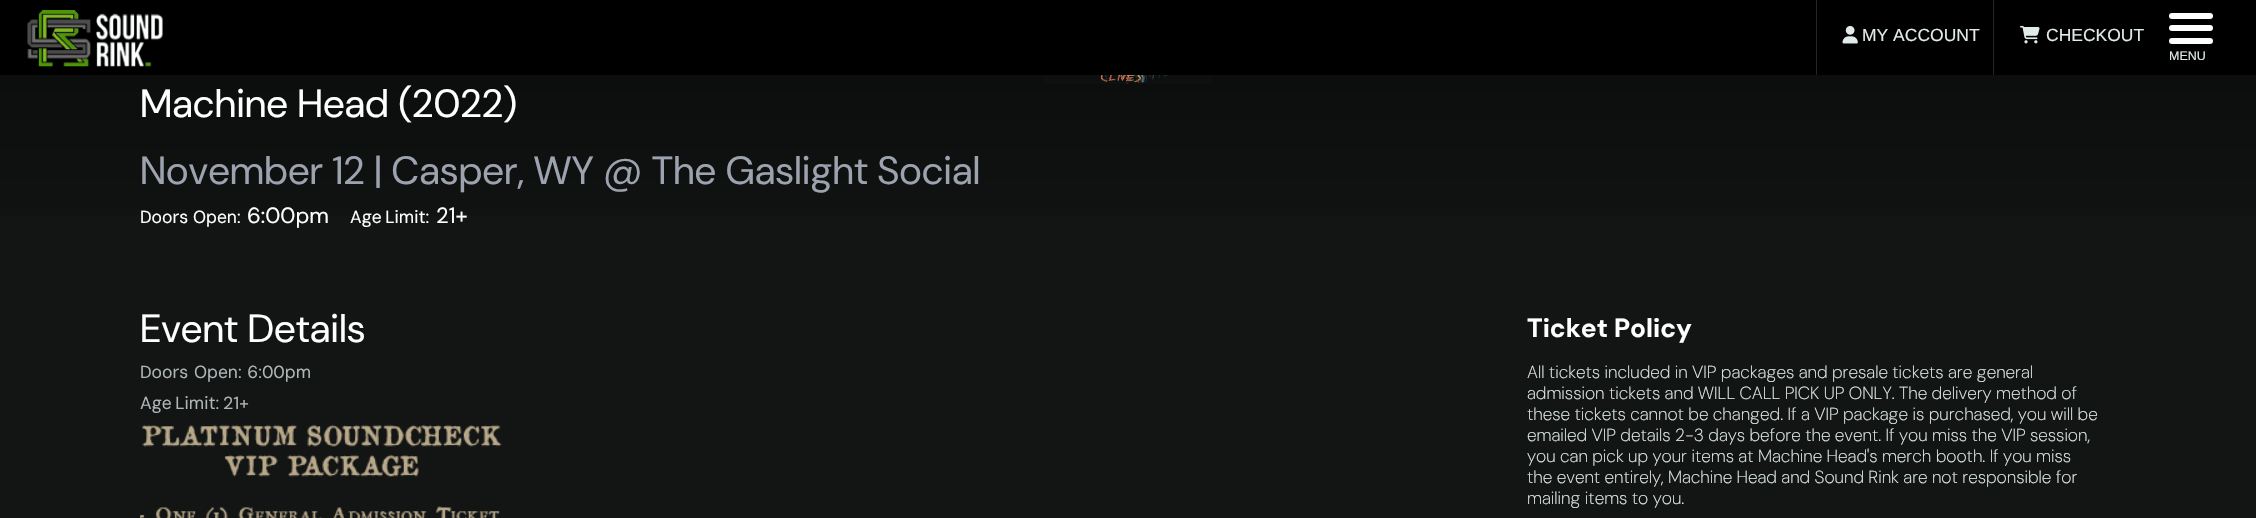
#include "include/core/SkBlurTypes.h"
#include "include/core/SkCanvas.h"
#include "include/core/SkData.h"
#include "include/core/SkFont.h"
#include "include/core/SkFontMgr.h"
#include "include/core/SkImage.h"
#include "include/core/SkMaskFilter.h"
#include "include/core/SkPaint.h"
#include "include/core/SkPathBuilder.h"
#include "include/core/SkTextBlob.h"
#include "include/effects/SkDashPathEffect.h"
#include "include/effects/SkGradientShader.h"
#include "include/utils/SkParsePath.h"

extern sk_sp<SkFontMgr> fontMgr;

void draw(SkCanvas* canvas) {
    SkPaint p;
    p.setAntiAlias(true);
    auto font = [&](const char* family, int weight, float size, bool italic = false) {
        SkFontStyle style(weight, SkFontStyle::kNormal_Width,
            italic ? SkFontStyle::kItalic_Slant : SkFontStyle::kUpright_Slant);
        SkFont result(fontMgr->matchFamilyStyle(family, style), size);
        result.setSubpixel(true);
        return result;
    };
    auto drawTracked = [&](const char* s, float x, float y, const SkFont& font, const SkPaint& ink, float letter, float word) {
        std::vector<SkGlyphID> glyphs(font.countText(s, strlen(s), SkTextEncoding::kUTF8));
        std::vector<float> xs(glyphs.size());
        font.textToGlyphs(s, strlen(s), SkTextEncoding::kUTF8, glyphs);
        font.getXPos(glyphs, xs, x);
        float extra = 0;
        for (size_t i = 0; i < glyphs.size(); i++) {
            xs[i] += extra;
            extra += letter + word * (glyphs[i] == font.unicharToGlyph(' '));
        }
        canvas->drawTextBlob(SkTextBlob::MakeFromPosHGlyphs(glyphs, xs, y, font), 0, 0, ink);
    };
    auto drawPhoto = [&](const char* path, float l, float t, float r, float b) {
        auto image = SkImages::DeferredFromEncodedData(SkData::MakeFromFileName(path));
        canvas->drawImageRect(image, SkRect::MakeLTRB(l, t, r, b), SkSamplingOptions());
    };
    canvas->clear(0xFF131515);
    p.setColor(0xFF000000);
    canvas->drawRect(SkRect::MakeLTRB(0, 0, 2256, 75), p);
    drawPhoto("media/1.png", 27, 10, 163, 67);
    p.setColor(0xFF262626);
    canvas->drawRect(SkRect::MakeLTRB(1816, 0, 1817, 75), p);
    drawPhoto("media/2.png", 1842, 25, 1858, 44);
    auto font1 = font("Liberation Sans", 400, 17.5f);
    p.setColor(0xFFE2EBEB);
    canvas->drawString("MY ACCOUNT", 1862, 41, font1, p);
    p.setColor(0xFF262626);
    canvas->drawRect(SkRect::MakeLTRB(1993, 0, 1994, 75), p);
    drawPhoto("media/3.png", 2020, 25, 2040, 44);
    p.setColor(0xFFE2EBEB);
    canvas->drawString("CHECKOUT", 2046, 41, font1, p);
    p.setColor(0xFFFFFFFF);
    canvas->drawRoundRect(SkRect::MakeLTRB(2169, 13, 2213, 19), 3, 3, p);
    canvas->drawRoundRect(SkRect::MakeLTRB(2169, 25, 2213, 31), 3, 3, p);
    canvas->drawRoundRect(SkRect::MakeLTRB(2169, 38, 2213, 44), 3, 3, p);
    auto font2 = font("Liberation Sans", 400, 12.5f);
    p.setColor(0xFFE2EBEB);
    canvas->drawString("MENU", 2169, 60, font2, p);
    {
        const SkColor colors[] = {0xFF131515, 0xFF000000};
        const float stops[] = {0, 0.98f};
        const SkPoint ends[] = {{1128, 283}, {1128, -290}};
        p.setShader(SkGradientShader::MakeLinear(ends, colors, stops, 2, SkTileMode::kClamp));
        p.setAlpha(255);
    }
    canvas->drawRect(SkRect::MakeLTRB(0, 75, 2256, 216), p);
    drawPhoto("media/4.png", 1043, 75, 1211, 84);
    auto font3 = font("DM Sans", 400, 39.4f);
    p.setShader(nullptr);
    p.setColor(0xFFFFFFFF);
    canvas->drawString("Machine Head (2022)", 140, 117, font3, p);
    p.setColor(0xFF9CA3AF);
    canvas->drawString("November 12 | Casper, WY @ The Gaslight Social", 140, 184, font3, p);
    auto font4 = font("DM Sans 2", 400, 17.5f);
    p.setColor(0xFFFFFFFF);
    canvas->drawString("Doors Open:", 140, 223, font4, p);
    auto font5 = font("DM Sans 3", 400, 22);
    canvas->drawString("6:00pm", 247, 223, font5, p);
    drawTracked("Age Limit:", 350, 223, font4, p, 0, -1);
    canvas->drawString("21+", 436, 223, font5, p);
    canvas->drawString("Event Details", 140, 342, font3, p);
    p.setColor(0xFFAEB6B6);
    drawTracked("Doors Open: 6:00pm", 140, 378, font4, p, 0, 1);
    drawTracked("Age Limit: 21+", 140, 409, font4, p, 0, -1);
    drawPhoto("media/5.png", 140, 424, 502, 518);
    auto font6 = font("DM Sans", 700, 26.25f);
    p.setColor(0xFFFFFFFF);
    canvas->drawString("Ticket Policy", 1527, 337, font6, p);
    auto font7 = font("DM Sans", 200, 17.5f);
    p.setColor(0xFFE2EBEB);
    {
        const struct { const char* s; float x, y; } items[] = {
            {"All tickets included in VIP packages and presale tickets are general", 1527, 378},
            {"admission tickets and WILL CALL PICK UP ONLY. The delivery method of", 1527, 399},
            {"these tickets cannot be changed. If a VIP package is purchased, you will be", 1527, 420},
            {"emailed VIP details 2-3 days before the event. If you miss the VIP session,", 1527, 441},
            {"you can pick up your items at Machine Head's merch booth. If you miss", 1527, 462},
            {"the event entirely, Machine Head and Sound Rink are not responsible for", 1527, 483},
            {"mailing items to you.", 1527, 504},
        };
        for (auto [s, x, y] : items) {
            canvas->drawString(s, x, y, font7, p);
        }
    }
}
